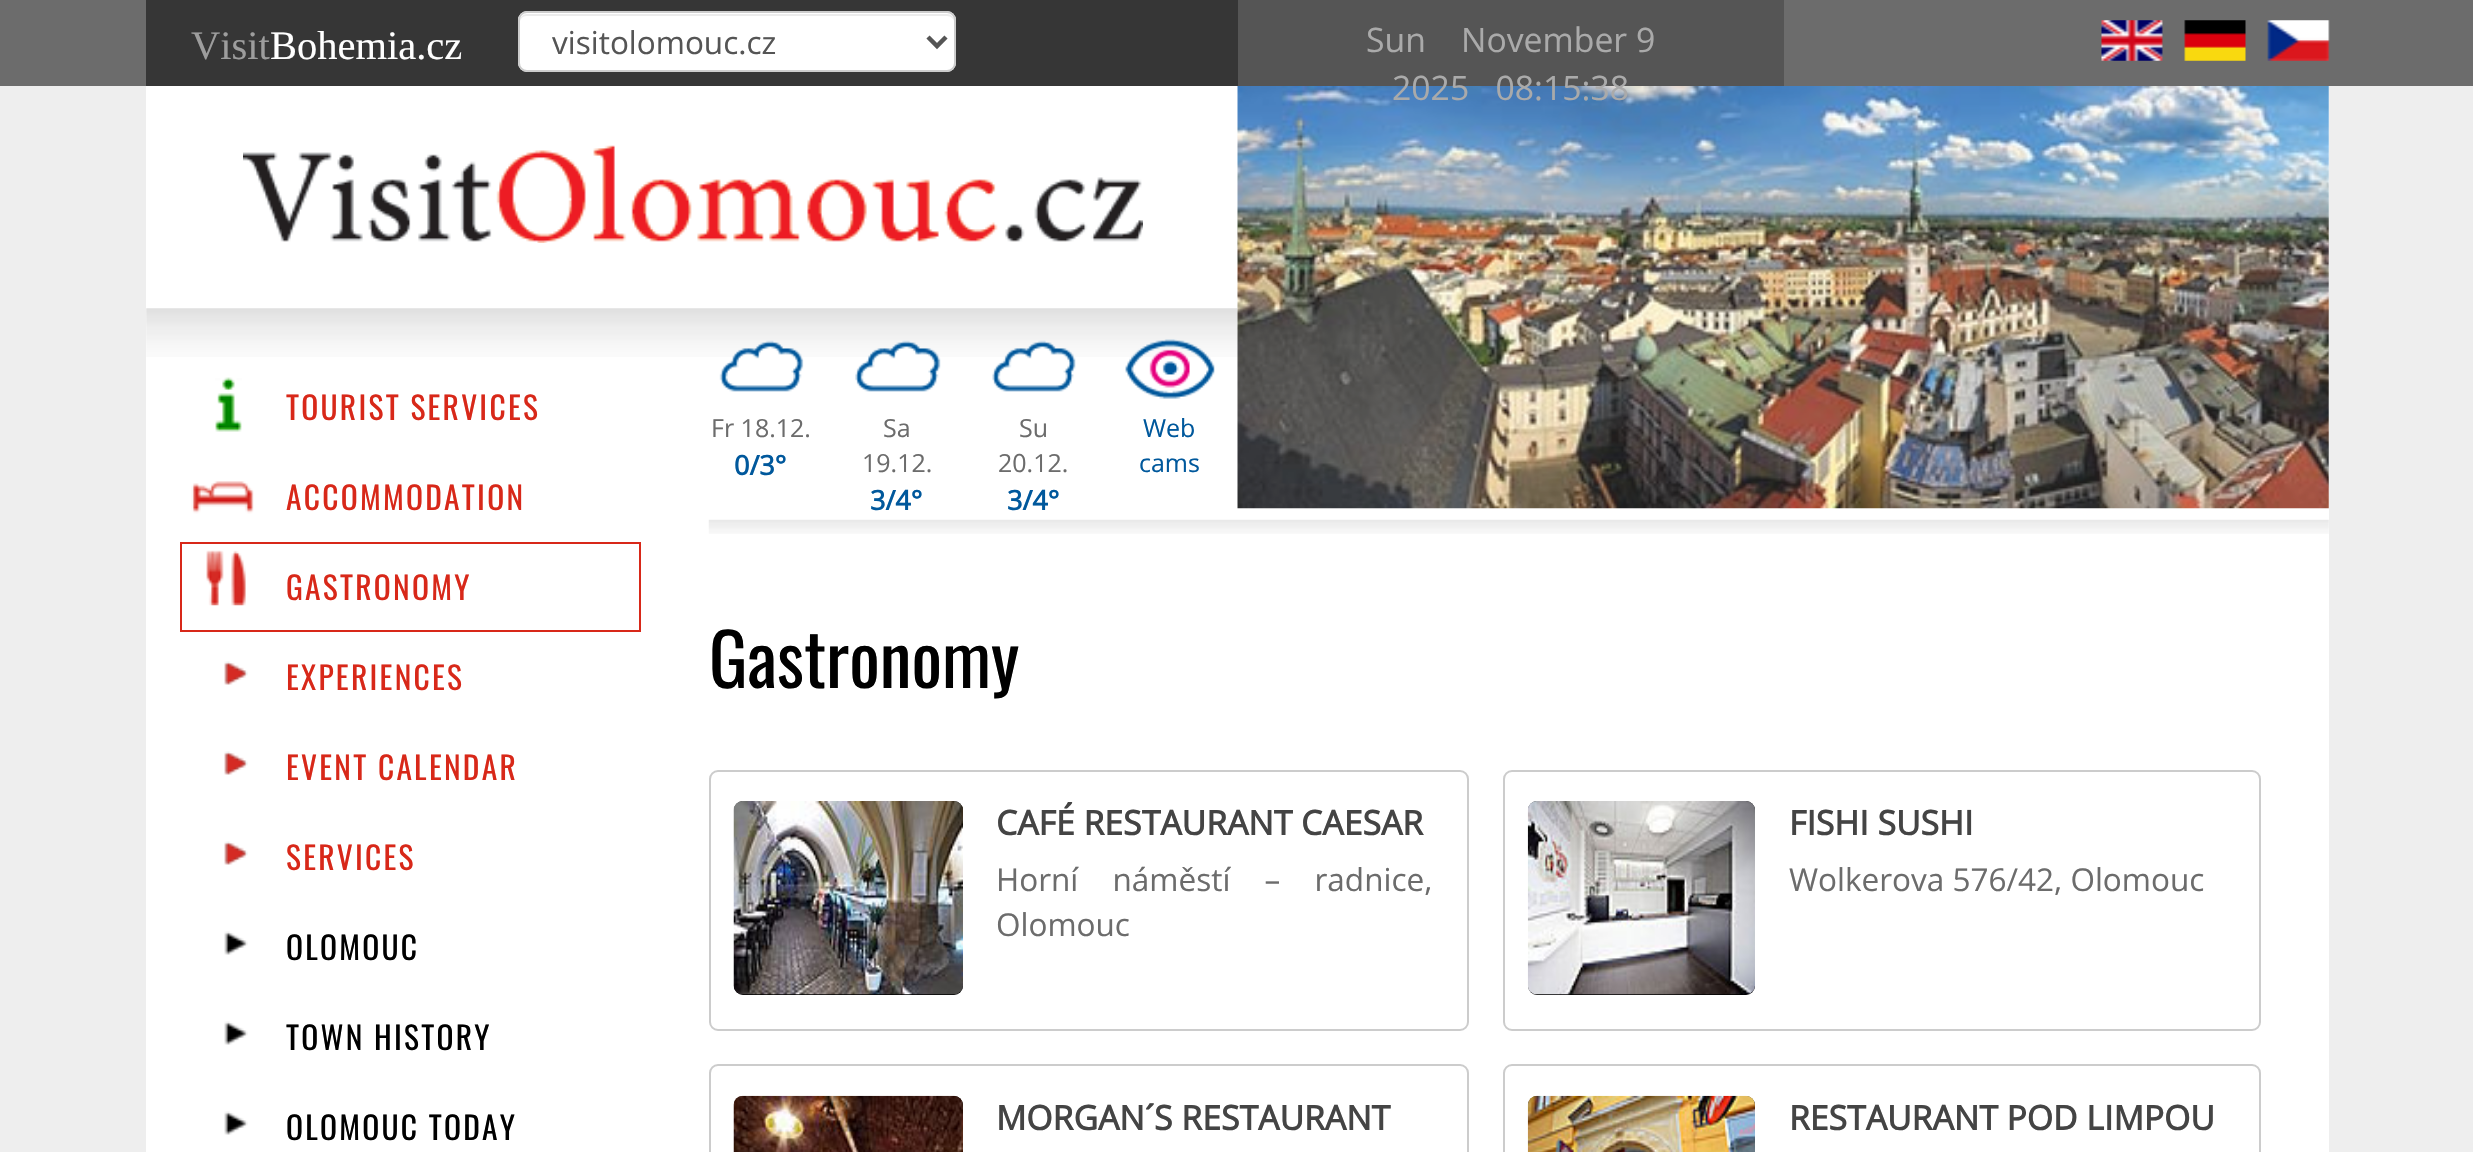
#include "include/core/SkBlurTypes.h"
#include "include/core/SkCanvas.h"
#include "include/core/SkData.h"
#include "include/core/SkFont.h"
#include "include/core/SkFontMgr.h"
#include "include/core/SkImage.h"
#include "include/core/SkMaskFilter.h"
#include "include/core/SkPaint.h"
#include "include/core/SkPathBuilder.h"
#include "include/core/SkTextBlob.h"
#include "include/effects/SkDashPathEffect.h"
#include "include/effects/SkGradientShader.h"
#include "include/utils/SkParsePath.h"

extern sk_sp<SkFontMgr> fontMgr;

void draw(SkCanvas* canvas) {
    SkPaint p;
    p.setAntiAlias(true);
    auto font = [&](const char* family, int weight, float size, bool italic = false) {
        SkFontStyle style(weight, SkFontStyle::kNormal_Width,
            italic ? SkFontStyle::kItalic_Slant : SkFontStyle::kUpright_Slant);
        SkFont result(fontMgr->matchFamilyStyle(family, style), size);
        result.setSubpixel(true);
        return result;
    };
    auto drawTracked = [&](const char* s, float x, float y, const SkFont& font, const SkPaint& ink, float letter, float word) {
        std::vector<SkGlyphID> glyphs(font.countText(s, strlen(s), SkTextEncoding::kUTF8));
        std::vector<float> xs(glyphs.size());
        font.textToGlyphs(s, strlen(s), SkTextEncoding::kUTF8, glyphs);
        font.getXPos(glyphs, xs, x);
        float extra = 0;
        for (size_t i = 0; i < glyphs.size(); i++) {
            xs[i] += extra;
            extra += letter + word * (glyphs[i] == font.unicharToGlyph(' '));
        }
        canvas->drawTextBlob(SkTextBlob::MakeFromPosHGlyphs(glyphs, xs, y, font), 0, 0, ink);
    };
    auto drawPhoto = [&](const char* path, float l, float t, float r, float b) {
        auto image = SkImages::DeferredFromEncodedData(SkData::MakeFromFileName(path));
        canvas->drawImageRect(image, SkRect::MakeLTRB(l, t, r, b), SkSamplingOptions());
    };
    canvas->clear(0xFFEEEEEE);
    p.setColor(0xFF6C6C6C);
    canvas->drawRect(SkRect::MakeLTRB(0, 0, 2473, 86), p);
    p.setColor(0xFF363636);
    canvas->drawRect(SkRect::MakeLTRB(146, 0, 1238, 86), p);
    auto font1 = font("Liberation Serif", 400, 40.5f);
    p.setColor(0xFF9D9D9D);
    canvas->drawString("Visit", 191, 59, font1, p);
    p.setColor(0xFFFFFFFF);
    canvas->drawString("Bohemia.cz", 270, 59, font1, p);
    canvas->drawRoundRect(SkRect::MakeLTRB(518, 11, 956, 72), 9, 9, p);
    p.setColor(0xFFECECEC);
    canvas->drawPath(SkPathBuilder().moveTo(526, 16).lineTo(947, 16).cubicTo(951, 16, 954, 19, 954, 22).cubicTo(954, 18, 952, 14, 947, 14).lineTo(527, 14).cubicTo(522, 14, 520, 18, 520, 22).cubicTo(520, 19, 523, 16, 526, 16).close().detach(), p);
    p.setStyle(SkPaint::kStroke_Style);
    p.setStrokeWidth(2);
    p.setColor(0xFFCCCCCC);
    canvas->drawRoundRect(SkRect::MakeLTRB(519, 12, 955, 71), 8, 8, p);
    p.setStrokeWidth(4.5f);
    p.setColor(0xFF555555);
    canvas->drawPath(SkPathBuilder().moveTo(928, 37).lineTo(937, 46).lineTo(946, 37).detach(), p);
    auto font2 = font("Open Sans", 400, 31.5f);
    p.setStyle(SkPaint::kFill_Style);
    canvas->drawString("visitolomouc.cz", 552, 54, font2, p);
    canvas->drawRect(SkRect::MakeLTRB(1238, 0, 1784, 86), p);
    auto font3 = font("Open Sans", 400, 33.75f);
    p.setColor(0xFFAAAAAA);
    canvas->drawString("Sun    November 9", 1366, 52, font3, p);
    p.setColor(0xFFFFFFFF);
    canvas->drawRect(SkRect::MakeLTRB(146, 86, 2329, 1152), p);
    drawPhoto("media/16.png", 146, 308, 1238, 357);
    drawPhoto("media/21.png", 1237, 86, 2329, 509);
    p.setColor(0xFFAAAAAA);
    canvas->drawString("2025   08:15:38", 1392, 100, font3, p);
    drawPhoto("media/1.png", 2101, 20, 2163, 61);
    drawPhoto("media/2.png", 2184, 20, 2246, 61);
    drawPhoto("media/3.png", 2267, 20, 2330, 61);
    drawPhoto("media/4.png", 215, 377, 242, 432);
    auto font4 = font("Oswald", 400, 31.5f);
    p.setColor(0xFFD82819);
    drawTracked("TOURIST SERVICES", 286, 420, font4, p, 2.25f, 0);
    drawPhoto("media/5.png", 191, 481, 254, 514);
    drawTracked("ACCOMMODATION", 286, 510, font4, p, 2.25f, 0);
    drawPhoto("media/6.png", 206, 550, 246, 606);
    p.setStyle(SkPaint::kStroke_Style);
    p.setStrokeWidth(2);
    canvas->drawRect(SkRect::MakeLTRB(181, 543, 640, 631), p);
    p.setStyle(SkPaint::kFill_Style);
    drawTracked("GASTRONOMY", 286, 600, font4, p, 2.25f, 0);
    drawPhoto("media/7.png", 224, 661, 248, 685);
    drawTracked("EXPERIENCES", 286, 690, font4, p, 2.25f, 0);
    drawPhoto("media/7.png", 224, 751, 248, 775);
    drawTracked("EVENT CALENDAR", 286, 780, font4, p, 2.25f, 0);
    drawPhoto("media/8.png", 224, 841, 248, 865);
    drawTracked("SERVICES", 286, 870, font4, p, 2.25f, 0);
    drawPhoto("media/9.png", 224, 931, 248, 955);
    p.setColor(0xFF000000);
    drawTracked("OLOMOUC", 286, 960, font4, p, 2.25f, 0);
    drawPhoto("media/9.png", 224, 1021, 248, 1045);
    drawTracked("TOWN HISTORY", 286, 1050, font4, p, 2.25f, 0);
    drawPhoto("media/9.png", 224, 1111, 248, 1135);
    drawTracked("OLOMOUC TODAY", 286, 1140, font4, p, 2.25f, 0);
    drawPhoto("media/10.png", 708, 519, 2329, 534);
    auto font5 = font("Oswald", 400, 72);
    canvas->drawString("Gastronomy", 709, 688, font5, p);
    p.setStyle(SkPaint::kStroke_Style);
    p.setColor(0xFFCCCCCC);
    canvas->drawRoundRect(SkRect::MakeLTRB(710, 771, 1468, 1030), 8, 8, p);
    p.setStyle(SkPaint::kFill_Style);
    p.setColor(0xFF000000);
    canvas->drawRoundRect(SkRect::MakeLTRB(734, 801, 963, 995), 9, 9, p);
    drawPhoto("media/11.png", 733, 801, 963, 995);
    auto font6 = font("Open Sans", 700, 33.75f);
    p.setColor(0xFF444444);
    canvas->drawString("CAFÉ RESTAURANT CAESAR", 996, 835, font6, p);
    p.setColor(0xFF6C6C6C);
    drawTracked("Horní náměstí – radnice,", 996, 891, font2, p, 0, 26);
    canvas->drawString("Olomouc", 996, 936, font2, p);
    p.setStyle(SkPaint::kStroke_Style);
    p.setColor(0xFFCCCCCC);
    canvas->drawRoundRect(SkRect::MakeLTRB(1504, 771, 2260, 1030), 8, 8, p);
    p.setStyle(SkPaint::kFill_Style);
    p.setColor(0xFF000000);
    canvas->drawRoundRect(SkRect::MakeLTRB(1528, 801, 1755, 995), 9, 9, p);
    drawPhoto("media/12.png", 1527, 801, 1755, 995);
    p.setColor(0xFF444444);
    canvas->drawString("FISHI SUSHI", 1789, 835, font6, p);
    p.setColor(0xFF6C6C6C);
    canvas->drawString("Wolkerova 576/42, Olomouc", 1789, 891, font2, p);
    p.setStyle(SkPaint::kStroke_Style);
    p.setColor(0xFFCCCCCC);
    canvas->drawRoundRect(SkRect::MakeLTRB(710, 1065, 1468, 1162), 8, 8, p);
    p.setStyle(SkPaint::kFill_Style);
    p.setColor(0xFF000000);
    canvas->drawRoundRect(SkRect::MakeLTRB(734, 1096, 963, 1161), 9, 9, p);
    drawPhoto("media/13.png", 733, 1095, 963, 1152);
    p.setColor(0xFF444444);
    canvas->drawString("MORGAN´S RESTAURANT", 996, 1130, font6, p);
    p.setStyle(SkPaint::kStroke_Style);
    p.setColor(0xFFCCCCCC);
    canvas->drawRoundRect(SkRect::MakeLTRB(1504, 1065, 2260, 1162), 8, 8, p);
    p.setStyle(SkPaint::kFill_Style);
    p.setColor(0xFF000000);
    canvas->drawRoundRect(SkRect::MakeLTRB(1528, 1096, 1755, 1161), 9, 9, p);
    drawPhoto("media/14.png", 1527, 1095, 1755, 1152);
    p.setColor(0xFF444444);
    canvas->drawString("RESTAURANT POD LIMPOU", 1789, 1130, font6, p);
    drawPhoto("media/15.png", 243, 145, 1143, 243);
    drawPhoto("media/17.png", 719, 340, 804, 392);
    auto font7 = font("Open Sans", 400, 25);
    p.setColor(0xFF6C6C6C);
    canvas->drawString("Fr 18.12.", 711, 437, font7, p);
    auto font8 = font("Open Sans", 700, 27);
    p.setColor(0xFF00589C);
    canvas->drawString("0/3°", 734, 475, font8, p);
    drawPhoto("media/18.png", 855, 340, 941, 392);
    p.setColor(0xFF6C6C6C);
    canvas->drawString("Sa", 883, 437, font7, p);
    canvas->drawString("19.12.", 862, 472, font7, p);
    p.setColor(0xFF00589C);
    canvas->drawString("3/4°", 870, 510, font8, p);
    drawPhoto("media/19.png", 992, 340, 1076, 392);
    p.setColor(0xFF6C6C6C);
    canvas->drawString("Su", 1019, 437, font7, p);
    canvas->drawString("20.12.", 998, 472, font7, p);
    p.setColor(0xFF00589C);
    canvas->drawString("3/4°", 1007, 510, font8, p);
    drawPhoto("media/20.png", 1125, 339, 1215, 399);
    canvas->drawString("Web", 1143, 437, font7, p);
    canvas->drawString("cams", 1139, 472, font7, p);
}
